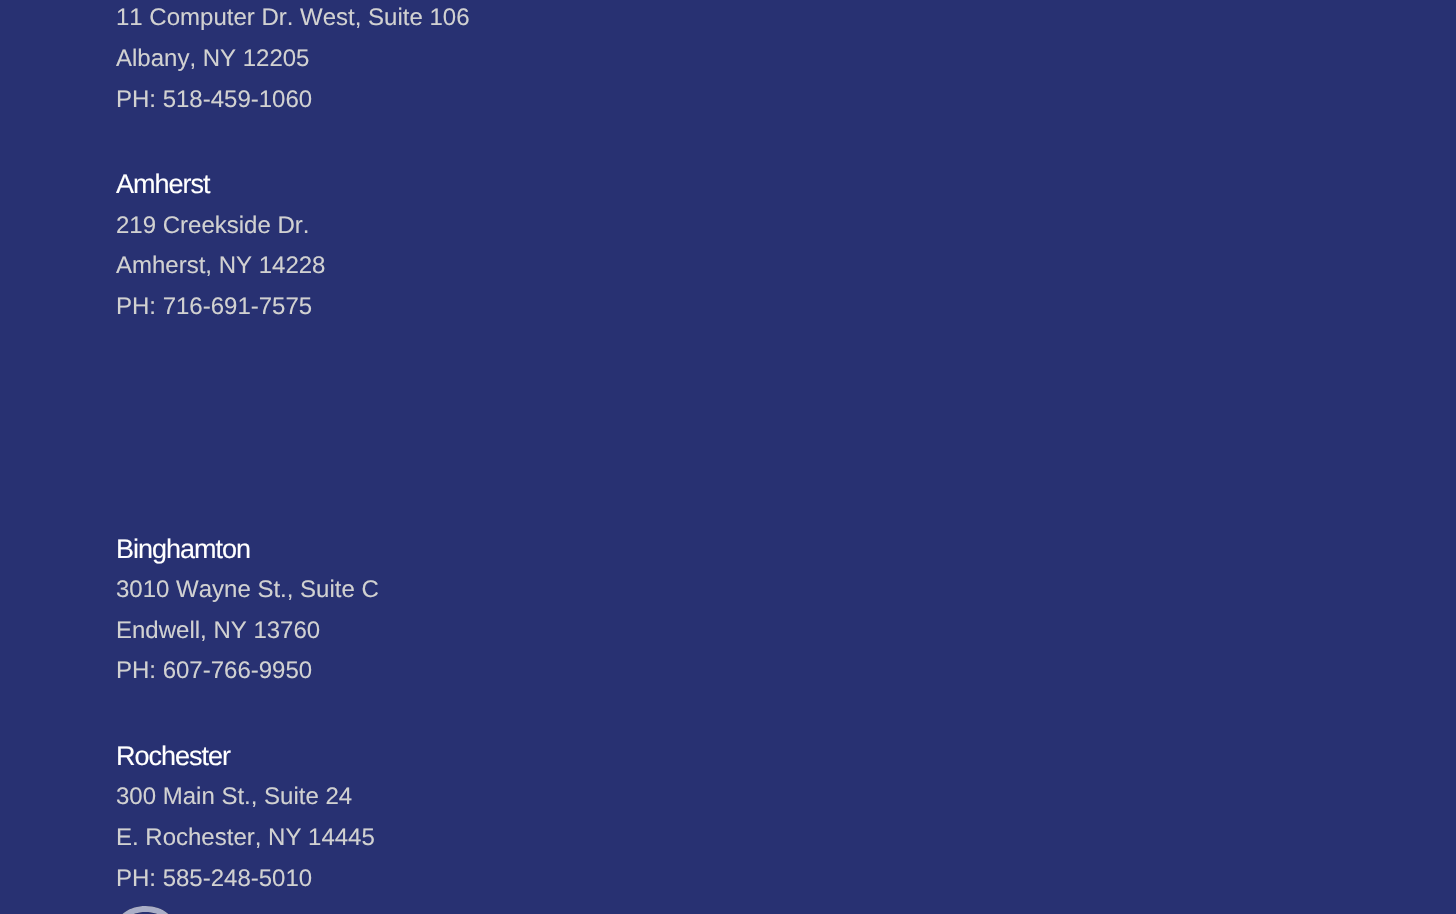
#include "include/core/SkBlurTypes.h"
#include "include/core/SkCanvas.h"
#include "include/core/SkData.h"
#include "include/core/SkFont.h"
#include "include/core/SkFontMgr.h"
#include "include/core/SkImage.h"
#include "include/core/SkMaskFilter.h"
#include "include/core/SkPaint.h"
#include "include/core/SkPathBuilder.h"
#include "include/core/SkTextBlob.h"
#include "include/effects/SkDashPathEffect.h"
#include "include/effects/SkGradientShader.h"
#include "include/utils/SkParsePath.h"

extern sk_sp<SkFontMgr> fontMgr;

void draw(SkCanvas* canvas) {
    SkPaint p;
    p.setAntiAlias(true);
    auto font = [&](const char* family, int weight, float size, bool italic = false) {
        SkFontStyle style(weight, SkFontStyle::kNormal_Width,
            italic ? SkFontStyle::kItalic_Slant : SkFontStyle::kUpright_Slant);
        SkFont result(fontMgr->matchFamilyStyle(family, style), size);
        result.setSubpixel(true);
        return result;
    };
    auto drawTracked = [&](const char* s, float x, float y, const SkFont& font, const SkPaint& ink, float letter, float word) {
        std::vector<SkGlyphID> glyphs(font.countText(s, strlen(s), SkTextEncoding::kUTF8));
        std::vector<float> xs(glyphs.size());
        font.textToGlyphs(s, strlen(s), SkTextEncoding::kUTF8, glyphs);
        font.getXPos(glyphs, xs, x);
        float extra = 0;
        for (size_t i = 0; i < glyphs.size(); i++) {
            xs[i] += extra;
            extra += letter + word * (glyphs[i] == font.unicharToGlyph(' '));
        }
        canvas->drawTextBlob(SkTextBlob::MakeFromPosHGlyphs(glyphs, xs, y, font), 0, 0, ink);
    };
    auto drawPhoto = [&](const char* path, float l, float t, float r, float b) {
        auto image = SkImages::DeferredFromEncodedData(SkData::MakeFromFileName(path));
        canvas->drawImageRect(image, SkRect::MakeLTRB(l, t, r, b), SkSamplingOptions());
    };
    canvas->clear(0xFF283172);
    auto font1 = font("Liberation Sans", 400, 24);
    p.setColor(0xFFD1D1D1);
    {
        const struct { const char* s; float x, y; } items[] = {
            {"11 Computer Dr. West, Suite 106", 116, 25},
            {"Albany, NY 12205", 116, 66},
            {"PH: 518-459-1060", 116, 107},
        };
        for (auto [s, x, y] : items) {
            canvas->drawString(s, x, y, font1, p);
        }
    }
    auto font2 = font("Liberation Sans", 400, 27);
    p.setColor(0xFFFFFFFF);
    drawTracked("Amherst", 116, 193, font2, p, -1, 0);
    p.setColor(0xFFD1D1D1);
    {
        const struct { const char* s; float x, y; } items[] = {
            {"219 Creekside Dr.", 116, 233},
            {"Amherst, NY 14228", 116, 273},
            {"PH: 716-691-7575", 116, 314},
        };
        for (auto [s, x, y] : items) {
            canvas->drawString(s, x, y, font1, p);
        }
    }
    p.setColor(0xFFFFFFFF);
    drawTracked("Binghamton", 116, 558, font2, p, -1, 0);
    p.setColor(0xFFD1D1D1);
    {
        const struct { const char* s; float x, y; } items[] = {
            {"3010 Wayne St., Suite C", 116, 597},
            {"Endwell, NY 13760", 116, 638},
            {"PH: 607-766-9950", 116, 678},
        };
        for (auto [s, x, y] : items) {
            canvas->drawString(s, x, y, font1, p);
        }
    }
    p.setColor(0xFFFFFFFF);
    drawTracked("Rochester", 116, 765, font2, p, -1, 0);
    p.setColor(0xFFD1D1D1);
    {
        const struct { const char* s; float x, y; } items[] = {
            {"300 Main St., Suite 24", 116, 804},
            {"E. Rochester, NY 14445", 116, 845},
            {"PH: 585-248-5010", 116, 886},
        };
        for (auto [s, x, y] : items) {
            canvas->drawString(s, x, y, font1, p);
        }
    }
    drawPhoto("media/1.png", 122, 906, 169, 914);
}
